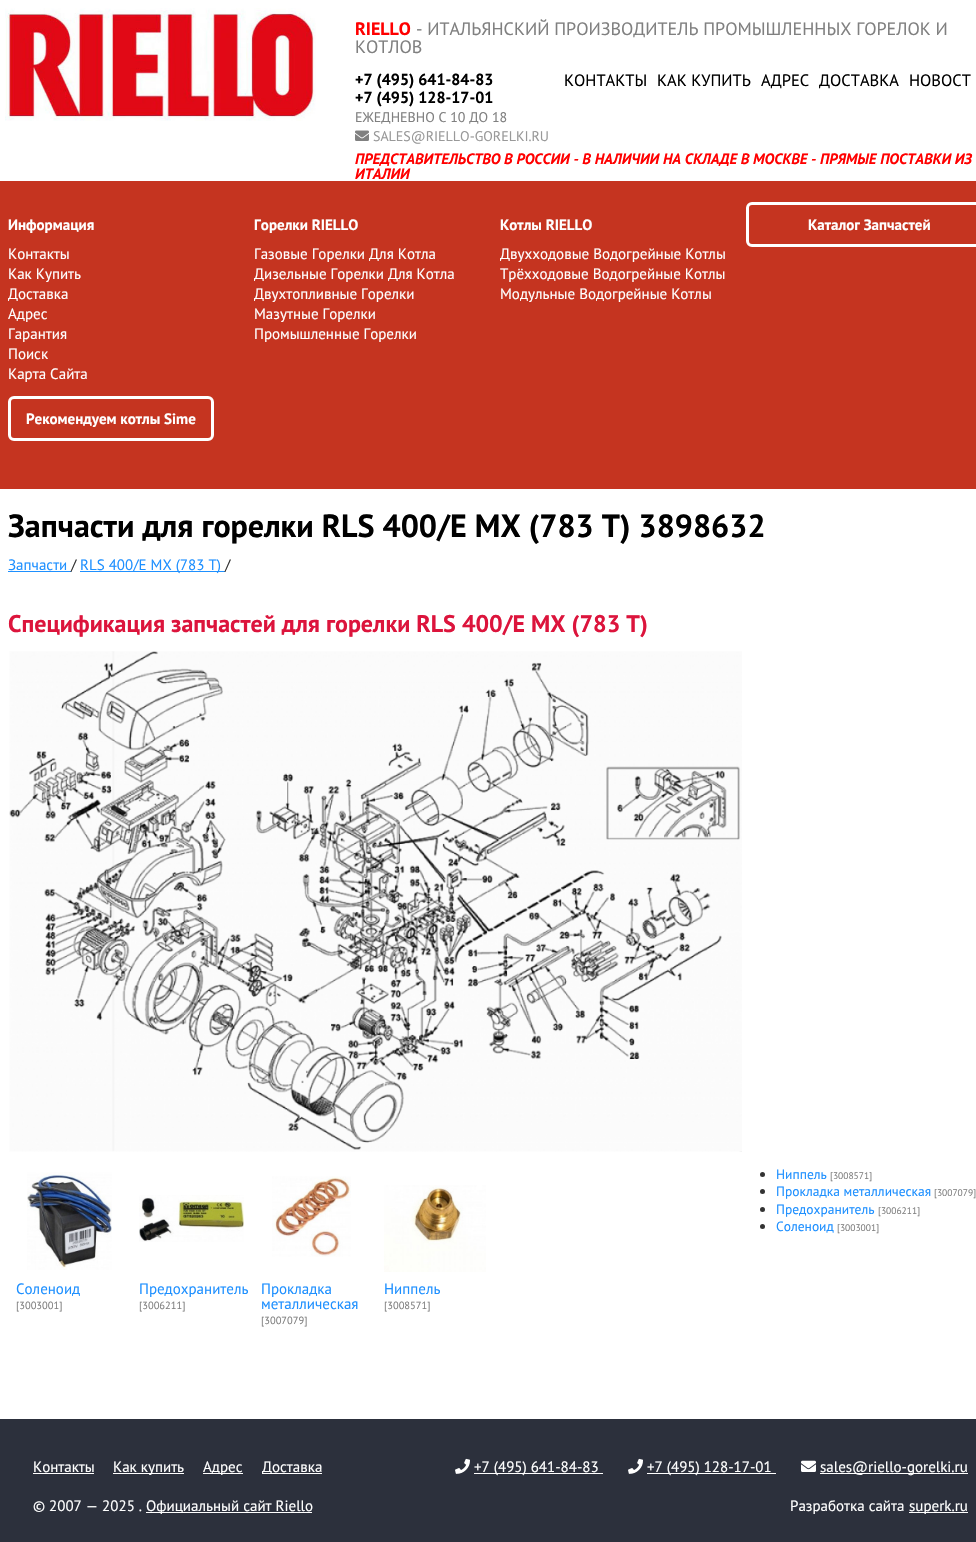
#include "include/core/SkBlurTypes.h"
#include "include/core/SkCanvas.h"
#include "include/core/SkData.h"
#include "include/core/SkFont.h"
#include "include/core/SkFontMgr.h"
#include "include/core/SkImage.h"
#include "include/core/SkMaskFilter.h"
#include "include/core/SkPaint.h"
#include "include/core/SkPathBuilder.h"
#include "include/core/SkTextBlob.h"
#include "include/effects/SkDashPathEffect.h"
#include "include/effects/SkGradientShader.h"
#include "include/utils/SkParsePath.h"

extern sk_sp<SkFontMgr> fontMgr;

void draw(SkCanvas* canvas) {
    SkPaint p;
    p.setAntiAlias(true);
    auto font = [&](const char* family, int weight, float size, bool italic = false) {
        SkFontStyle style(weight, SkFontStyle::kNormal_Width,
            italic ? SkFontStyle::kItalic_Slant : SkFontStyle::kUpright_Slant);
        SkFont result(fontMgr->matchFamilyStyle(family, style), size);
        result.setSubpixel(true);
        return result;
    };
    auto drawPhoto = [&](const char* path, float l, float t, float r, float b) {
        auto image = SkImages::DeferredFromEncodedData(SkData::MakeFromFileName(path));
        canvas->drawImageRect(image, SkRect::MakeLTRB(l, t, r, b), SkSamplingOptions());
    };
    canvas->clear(0xFFFFFFFF);
    drawPhoto("media/1.png", 5, 8, 316, 121);
    auto font1 = font("PT Sans", 700, 18);
    p.setColor(0xFFFF0000);
    canvas->drawString("RIELLO", 355, 35, font1, p);
    auto font2 = font("PT Sans", 400, 18);
    p.setColor(0xFF808080);
    canvas->drawString("- ИТАЛЬЯНСКИЙ ПРОИЗВОДИТЕЛЬ ПРОМЫШЛЕННЫХ ГОРЕЛОК И", 416, 35, font2, p);
    canvas->drawString("КОТЛОВ", 355, 53, font2, p);
    auto font3 = font("PT Sans", 700, 16);
    p.setColor(0xFF000000);
    canvas->drawString("+7 (495) 641-84-83", 355, 85, font3, p);
    canvas->drawString("+7 (495) 128-17-01", 355, 103, font3, p);
    auto font4 = font("PT Sans", 400, 14);
    p.setColor(0xFF808080);
    canvas->drawString("ЕЖЕДНЕВНО С 10 ДО 18", 355, 122, font4, p);
    drawPhoto("media/2.png", 355, 130, 369, 141);
    p.setColor(0xFF999999);
    canvas->drawString("SALES@RIELLO-GORELKI.RU", 373, 141, font4, p);
    auto font5 = font("PT Sans", 400, 16.5f);
    p.setColor(0xFF000000);
    {
        const struct { const char* s; float x, y; } items[] = {
            {"КОНТАКТЫ", 564, 86},
            {"КАК КУПИТЬ", 657, 86},
            {"АДРЕС", 761, 86},
            {"ДОСТАВКА", 819, 86},
            {"НОВОСТ", 909, 86},
        };
        for (auto [s, x, y] : items) {
            canvas->drawString(s, x, y, font5, p);
        }
    }
    auto font6 = font("PT Sans", 700, 15, true);
    p.setColor(0xFFFF0000);
    canvas->drawString("ПРЕДСТАВИТЕЛЬСТВО В РОССИИ - В НАЛИЧИИ НА СКЛАДЕ В МОСКВЕ - ПРЯМЫЕ ПОСТАВКИ ИЗ", 355, 164, font6, p);
    canvas->drawString("ИТАЛИИ", 355, 179, font6, p);
    p.setColor(0xFFC53420);
    canvas->drawRect(SkRect::MakeLTRB(0, 181, 976, 489), p);
    auto font7 = font("PT Sans", 700, 15);
    p.setColor(0xFFFFFFFF);
    canvas->drawString("Информация", 8, 230, font7, p);
    auto font8 = font("PT Sans", 400, 15);
    {
        const struct { const char* s; float x, y; } items[] = {
            {"Контакты", 8, 259},
            {"Как Купить", 8, 279},
            {"Доставка", 8, 299},
            {"Адрес", 8, 319},
            {"Гарантия", 8, 339},
            {"Поиск", 8, 359},
            {"Карта Сайта", 8, 379},
        };
        for (auto [s, x, y] : items) {
            canvas->drawString(s, x, y, font8, p);
        }
    }
    p.setStyle(SkPaint::kStroke_Style);
    p.setStrokeWidth(3);
    canvas->drawRoundRect(SkRect::MakeLTRB(9.5f, 397.5f, 212.5f, 439.5f), 4.5f, 4.5f, p);
    p.setStyle(SkPaint::kFill_Style);
    canvas->drawString("Рекомендуем котлы Sime", 26, 424, font7, p);
    canvas->drawString("Горелки RIELLO", 254, 230, font7, p);
    {
        const struct { const char* s; float x, y; } items[] = {
            {"Газовые Горелки Для Котла", 254, 259},
            {"Дизельные Горелки Для Котла", 254, 279},
            {"Двухтопливные Горелки", 254, 299},
            {"Мазутные Горелки", 254, 319},
            {"Промышленные Горелки", 254, 339},
        };
        for (auto [s, x, y] : items) {
            canvas->drawString(s, x, y, font8, p);
        }
    }
    canvas->drawString("Котлы RIELLO", 500, 230, font7, p);
    {
        const struct { const char* s; float x, y; } items[] = {
            {"Двухходовые Водогрейные Котлы", 500, 259},
            {"Трёхходовые Водогрейные Котлы", 500, 279},
            {"Модульные Водогрейные Котлы", 500, 299},
        };
        for (auto [s, x, y] : items) {
            canvas->drawString(s, x, y, font8, p);
        }
    }
    p.setStyle(SkPaint::kStroke_Style);
    canvas->drawRoundRect(SkRect::MakeLTRB(747.5f, 203.5f, 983.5f, 245.5f), 4.5f, 4.5f, p);
    p.setStyle(SkPaint::kFill_Style);
    canvas->drawString("Каталог Запчастей", 808, 230, font7, p);
    auto font9 = font("PT Sans", 700, 32);
    p.setColor(0xFF000000);
    canvas->drawString("Запчасти для горелки RLS 400/E MX (783 T) 3898632", 8, 537, font9, p);
    p.setColor(0xFF1E90FF);
    canvas->drawString("Запчасти", 8, 570, font8, p);
    canvas->drawRect(SkRect::MakeLTRB(8, 571, 71, 572), p);
    p.setColor(0xFF333333);
    canvas->drawString("/", 71, 570, font8, p);
    p.setColor(0xFF1E90FF);
    canvas->drawRect(SkRect::MakeLTRB(80, 571, 225, 572), p);
    canvas->drawString("RLS 400/E MX (783 T)", 80, 570, font8, p);
    p.setColor(0xFF333333);
    canvas->drawString("/", 225, 570, font8, p);
    auto font10 = font("PT Sans", 700, 24);
    p.setColor(0xFFDC143C);
    canvas->drawString("Спецификация запчастей для горелки RLS 400/E MX (783 T)", 8, 632, font10, p);
    drawPhoto("media/3.png", 9, 651, 742, 1152);
    p.setColor(0xFF333333);
    canvas->drawCircle(762.5f, 1174.5f, 2.5f, p);
    auto font11 = font("PT Sans", 400, 13.5f);
    p.setColor(0xFF1E90FF);
    canvas->drawString("Ниппель", 776, 1179, font11, p);
    auto font12 = font("PT Sans", 400, 9.5f);
    p.setColor(0xFF808080);
    canvas->drawString("[3008571]", 830, 1179, font12, p);
    p.setColor(0xFF333333);
    canvas->drawCircle(762.5f, 1191.5f, 2.5f, p);
    p.setColor(0xFF1E90FF);
    canvas->drawString("Прокладка металлическая", 776, 1196, font11, p);
    p.setColor(0xFF808080);
    canvas->drawString("[3007079]", 934, 1196, font12, p);
    p.setColor(0xFF333333);
    canvas->drawCircle(762.5f, 1209.5f, 2.5f, p);
    p.setColor(0xFF1E90FF);
    canvas->drawString("Предохранитель", 776, 1214, font11, p);
    p.setColor(0xFF808080);
    canvas->drawString("[3006211]", 878, 1214, font12, p);
    p.setColor(0xFF333333);
    canvas->drawCircle(762.5f, 1226.5f, 2.5f, p);
    p.setColor(0xFF1E90FF);
    canvas->drawString("Соленоид", 776, 1231, font11, p);
    p.setColor(0xFF808080);
    canvas->drawString("[3003001]", 837, 1231, font12, p);
    drawPhoto("media/4.png", 27, 1172, 112, 1270);
    p.setColor(0xFF1E90FF);
    canvas->drawString("Соленоид", 16, 1294, font8, p);
    auto font13 = font("PT Sans", 400, 10.5f);
    p.setColor(0xFF808080);
    canvas->drawString("[3003001]", 16, 1309, font13, p);
    drawPhoto("media/5.png", 139, 1195, 244, 1242);
    p.setColor(0xFF1E90FF);
    canvas->drawString("Предохранитель", 139, 1294, font8, p);
    p.setColor(0xFF808080);
    canvas->drawString("[3006211]", 139, 1309, font13, p);
    drawPhoto("media/6.png", 272, 1176, 351, 1257);
    p.setColor(0xFF1E90FF);
    canvas->drawString("Прокладка", 261, 1294, font8, p);
    canvas->drawString("металлическая", 261, 1309, font8, p);
    p.setColor(0xFF808080);
    canvas->drawString("[3007079]", 261, 1324, font13, p);
    drawPhoto("media/7.png", 384, 1185, 486, 1272);
    p.setColor(0xFF1E90FF);
    canvas->drawString("Ниппель", 384, 1294, font8, p);
    p.setColor(0xFF808080);
    canvas->drawString("[3008571]", 384, 1309, font13, p);
    p.setColor(0xFF2C303C);
    canvas->drawRect(SkRect::MakeLTRB(0, 1419, 976, 1542), p);
    p.setColor(0xFFFFFFFF);
    canvas->drawString("Контакты", 33, 1472, font8, p);
    canvas->drawRect(SkRect::MakeLTRB(33, 1473, 94, 1474), p);
    canvas->drawRect(SkRect::MakeLTRB(113, 1473, 184, 1474), p);
    canvas->drawString("Как купить", 113, 1472, font8, p);
    canvas->drawRect(SkRect::MakeLTRB(203, 1473, 243, 1474), p);
    canvas->drawString("Адрес", 203, 1472, font8, p);
    canvas->drawRect(SkRect::MakeLTRB(262, 1473, 322, 1474), p);
    canvas->drawString("Доставка", 262, 1472, font8, p);
    drawPhoto("media/8.png", 455, 1458, 470, 1474);
    canvas->drawRect(SkRect::MakeLTRB(474, 1473, 603, 1474), p);
    canvas->drawString("+7 (495) 641-84-83", 474, 1472, font8, p);
    drawPhoto("media/8.png", 628, 1458, 643, 1474);
    canvas->drawRect(SkRect::MakeLTRB(647, 1473, 776, 1474), p);
    canvas->drawString("+7 (495) 128-17-01", 647, 1472, font8, p);
    drawPhoto("media/9.png", 801, 1460, 816, 1472);
    canvas->drawRect(SkRect::MakeLTRB(820, 1473, 968, 1474), p);
    canvas->drawString("sales@riello-gorelki.ru", 820, 1472, font8, p);
    canvas->drawString("© 2007 — 2025 .", 33, 1511, font8, p);
    canvas->drawRect(SkRect::MakeLTRB(146, 1512, 312, 1513), p);
    canvas->drawString("Официальный сайт Riello", 146, 1511, font8, p);
    canvas->drawString("Разработка сайта", 790, 1511, font8, p);
    canvas->drawRect(SkRect::MakeLTRB(909, 1512, 968, 1513), p);
    canvas->drawString("superk.ru", 909, 1511, font8, p);
}
